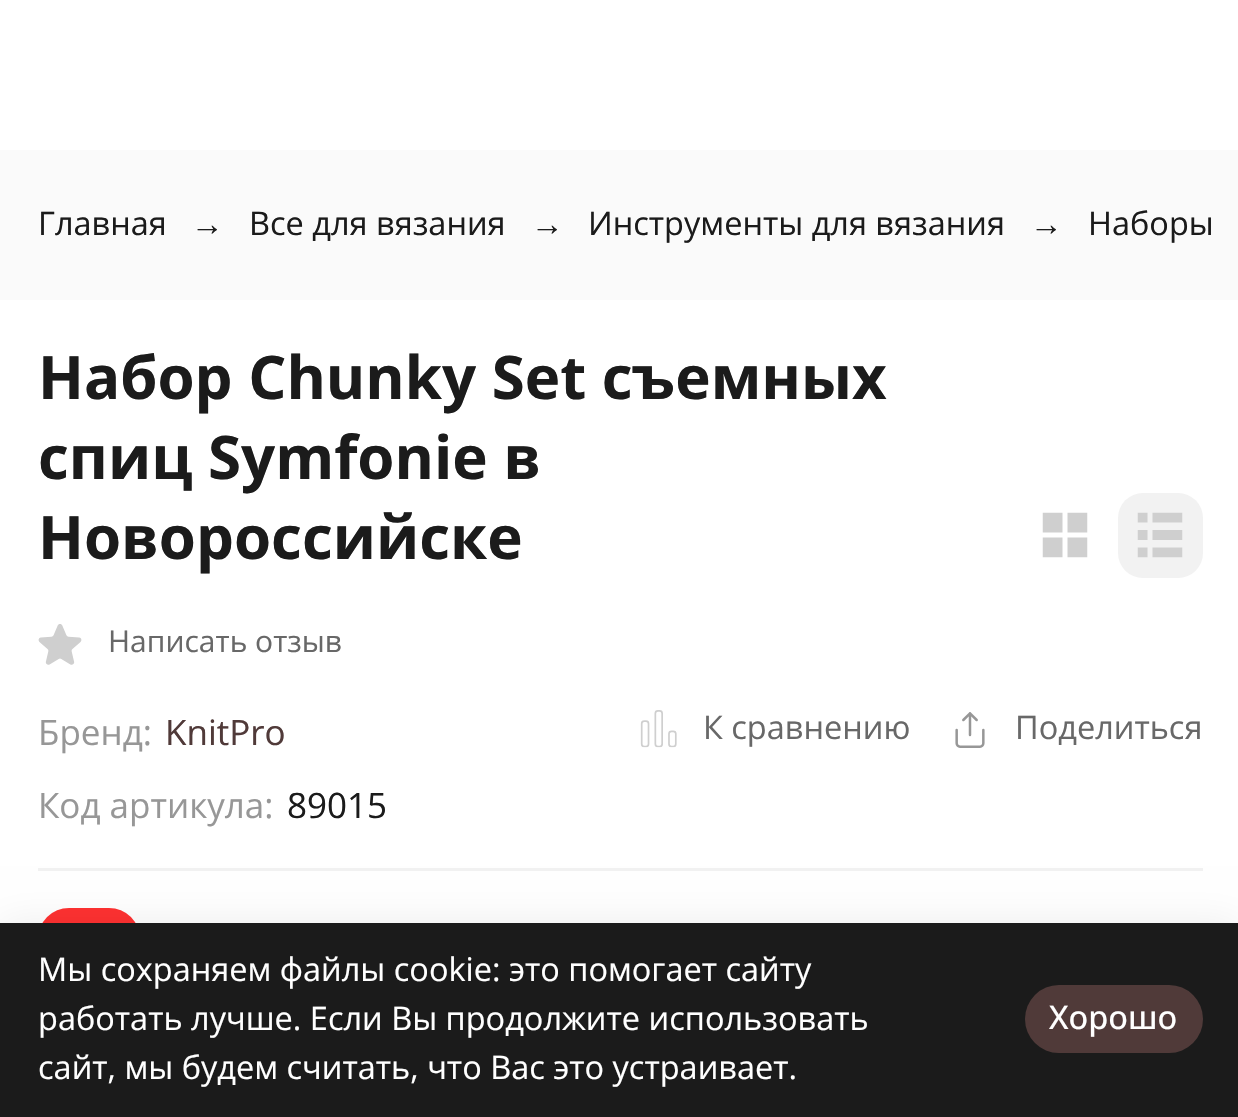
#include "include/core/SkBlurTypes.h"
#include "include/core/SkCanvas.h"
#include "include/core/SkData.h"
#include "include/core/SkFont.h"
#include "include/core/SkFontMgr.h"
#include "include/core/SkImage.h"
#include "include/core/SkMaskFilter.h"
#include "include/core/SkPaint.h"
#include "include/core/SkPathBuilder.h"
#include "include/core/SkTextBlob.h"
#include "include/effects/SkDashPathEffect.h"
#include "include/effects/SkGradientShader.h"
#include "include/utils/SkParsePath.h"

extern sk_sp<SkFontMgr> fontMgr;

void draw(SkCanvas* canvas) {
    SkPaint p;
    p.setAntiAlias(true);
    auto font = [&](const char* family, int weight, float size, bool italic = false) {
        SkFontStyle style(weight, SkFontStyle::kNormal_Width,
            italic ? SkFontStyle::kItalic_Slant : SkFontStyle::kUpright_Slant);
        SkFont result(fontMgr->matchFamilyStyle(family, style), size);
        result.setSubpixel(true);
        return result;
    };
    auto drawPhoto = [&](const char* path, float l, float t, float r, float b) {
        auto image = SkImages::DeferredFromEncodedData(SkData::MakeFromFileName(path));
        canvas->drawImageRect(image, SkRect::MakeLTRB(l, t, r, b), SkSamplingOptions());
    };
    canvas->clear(0xFFFFFFFF);
    p.setColor(0xFFFAFAFA);
    canvas->drawRect(SkRect::MakeLTRB(0, 150, 1238, 300), p);
    auto font1 = font("Open Sans", 400, 32.5f);
    p.setColor(0xFF1B1B1B);
    canvas->drawString("Главная", 38, 235, font1, p);
    auto font2 = font("Liberation Sans", 400, 32.5f);
    canvas->drawString("→", 191, 235, font2, p);
    canvas->drawString("Все для вязания", 249, 235, font1, p);
    canvas->drawString("→", 531, 235, font2, p);
    canvas->drawString("Инструменты для вязания", 588, 235, font1, p);
    canvas->drawString("→", 1030, 235, font2, p);
    canvas->drawString("Наборы", 1088, 235, font1, p);
    p.setColor(0xFFF2F2F2);
    canvas->drawRect(SkRect::MakeLTRB(38, 868, 1203, 871), p);
    auto font3 = font("Open Sans", 700, 60);
    p.setColor(0xFF1B1B1B);
    {
        const struct { const char* s; float x, y; } items[] = {
            {"Набор Chunky Set съемных", 38, 399},
            {"спиц Symfonie в", 38, 479},
            {"Новороссийске", 38, 559},
        };
        for (auto [s, x, y] : items) {
            canvas->drawString(s, x, y, font3, p);
        }
    }
    drawPhoto("media/1.png", 1042, 512, 1088, 558);
    p.setColor(0xFFF2F2F2);
    canvas->drawRoundRect(SkRect::MakeLTRB(1118, 493, 1203, 578), 25, 25, p);
    drawPhoto("media/2.png", 1137, 512, 1183, 558);
    drawPhoto("media/3.png", 38, 624, 82, 665);
    auto font4 = font("Open Sans", 400, 30);
    p.setColor(0xFF686868);
    canvas->drawString("Написать отзыв", 108, 652, font4, p);
    auto font5 = font("Open Sans", 400, 35);
    p.setColor(0xFF979797);
    canvas->drawString("Бренд:", 38, 745, font5, p);
    p.setColor(0xFF503A39);
    canvas->drawString("KnitPro", 165, 745, font5, p);
    drawPhoto("media/4.png", 640, 710, 677, 748);
    p.setColor(0xFF686868);
    canvas->drawString("К сравнению", 703, 739, font1, p);
    drawPhoto("media/5.png", 955, 712, 985, 748);
    canvas->drawString("Поделиться", 1015, 739, font1, p);
    p.setColor(0xFF979797);
    canvas->drawString("Код артикула:", 38, 818, font5, p);
    p.setColor(0xFF1B1B1B);
    canvas->drawString("89015", 287, 818, font5, p);
    p.setColor(0xFFFF3131);
    canvas->drawRoundRect(SkRect::MakeLTRB(38, 908, 140, 970), 31, 31, p);
    p.setColor(0x12000000);
    p.setMaskFilter(SkMaskFilter::MakeBlur(kNormal_SkBlurStyle, 19));
    canvas->drawRect(SkRect::MakeLTRB(0, 923, 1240, 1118), p);
    p.setMaskFilter(nullptr);
    p.setColor(0xFF1B1B1B);
    canvas->drawRect(SkRect::MakeLTRB(0, 923, 1238, 1117), p);
    p.setColor(0xFFFFFFFF);
    {
        const struct { const char* s; float x, y; } items[] = {
            {"Мы сохраняем файлы cookie: это помогает сайту", 38, 981},
            {"работать лучше. Если Вы продолжите использовать", 38, 1030},
            {"сайт, мы будем считать, что Вас это устраивает.", 38, 1079},
        };
        for (auto [s, x, y] : items) {
            canvas->drawString(s, x, y, font1, p);
        }
    }
    p.setColor(0xFF503A39);
    canvas->drawRoundRect(SkRect::MakeLTRB(1025, 985, 1203, 1053), 34, 34, p);
    auto font6 = font("Open Sans", 500, 32.5f);
    p.setColor(0xFFFFFFFF);
    canvas->drawString("Хорошо", 1049, 1029, font6, p);
}
